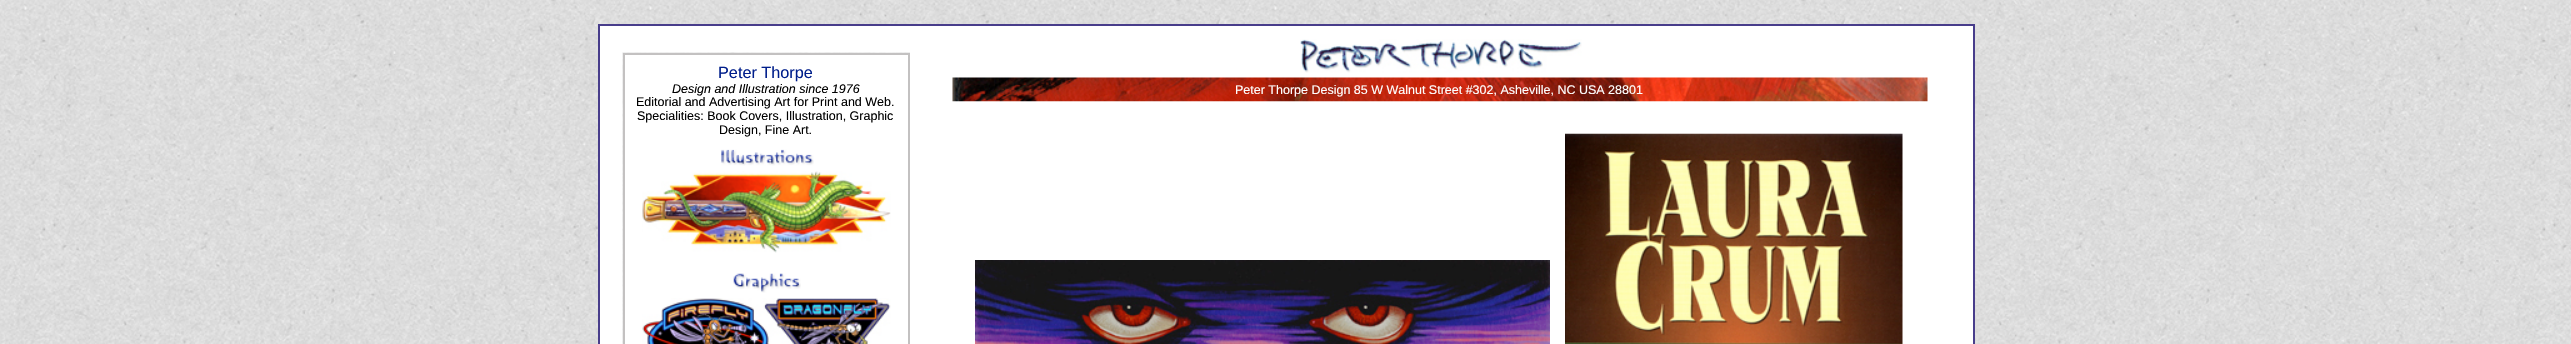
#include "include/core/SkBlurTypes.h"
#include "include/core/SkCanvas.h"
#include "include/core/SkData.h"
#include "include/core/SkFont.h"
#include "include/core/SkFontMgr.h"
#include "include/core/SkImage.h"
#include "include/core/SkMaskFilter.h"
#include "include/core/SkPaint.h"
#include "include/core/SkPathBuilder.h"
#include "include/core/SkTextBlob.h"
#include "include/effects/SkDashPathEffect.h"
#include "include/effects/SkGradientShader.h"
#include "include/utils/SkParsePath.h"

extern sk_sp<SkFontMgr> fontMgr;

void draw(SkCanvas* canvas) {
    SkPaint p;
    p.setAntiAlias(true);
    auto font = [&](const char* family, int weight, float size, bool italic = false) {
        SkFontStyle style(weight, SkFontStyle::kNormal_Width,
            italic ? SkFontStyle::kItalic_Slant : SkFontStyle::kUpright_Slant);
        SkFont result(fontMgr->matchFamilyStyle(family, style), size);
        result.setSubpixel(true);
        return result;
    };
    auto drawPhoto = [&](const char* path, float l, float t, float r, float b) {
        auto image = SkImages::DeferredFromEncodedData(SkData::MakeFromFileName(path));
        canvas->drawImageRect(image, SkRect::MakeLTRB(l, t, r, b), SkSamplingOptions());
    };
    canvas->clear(0xFFFFFFFF);
    drawPhoto("media/1.png", 0, 0, 2571, 344);
    p.setColor(0xFF483D8B);
    canvas->drawRect(SkRect::MakeLTRB(598, 24, 1975, 344), p);
    p.setColor(0xFFFFFFFF);
    canvas->drawRect(SkRect::MakeLTRB(600, 26, 1973, 344), p);
    drawPhoto("media/2.png", 622, 52, 910, 344);
    p.setColor(0xFFC3C1C1);
    canvas->drawRect(SkRect::MakeLTRB(623, 53, 910, 344), p);
    p.setColor(0xFFFFFFFF);
    canvas->drawRect(SkRect::MakeLTRB(625, 55, 908, 344), p);
    auto font1 = font("Liberation Sans", 400, 16.25f);
    p.setColor(0xFF001E8B);
    canvas->drawString("Peter Thorpe", 718, 78, font1, p);
    auto font2 = font("Liberation Sans", 400, 12.5f, true);
    p.setColor(0xFF000000);
    canvas->drawString("Design and Illustration since 1976", 672, 93, font2, p);
    auto font3 = font("Liberation Sans", 400, 12.5f);
    {
        const struct { const char* s; float x, y; } items[] = {
            {"Editorial and Advertising Art for Print and Web.", 636, 106},
            {"Specialities: Book Covers, Illustration, Graphic", 637, 120},
            {"Design, Fine Art.", 719, 134},
        };
        for (auto [s, x, y] : items) {
            canvas->drawString(s, x, y, font3, p);
        }
    }
    drawPhoto("media/3.png", 721, 149, 814, 166);
    drawPhoto("media/4.png", 642, 171, 891, 253);
    drawPhoto("media/5.png", 733, 273, 801, 293);
    drawPhoto("media/6.png", 642, 298, 891, 344);
    drawPhoto("media/7.png", 1300, 39, 1582, 73);
    drawPhoto("media/8.png", 952, 77, 1928, 102);
    p.setColor(0xFFFFFFFF);
    canvas->drawString("Peter Thorpe Design 85 W Walnut Street #302, Asheville, NC USA 28801", 1235, 94, font3, p);
    drawPhoto("media/9.png", 975, 260, 1550, 344);
    drawPhoto("media/10.png", 1565, 133, 1903, 344);
}
